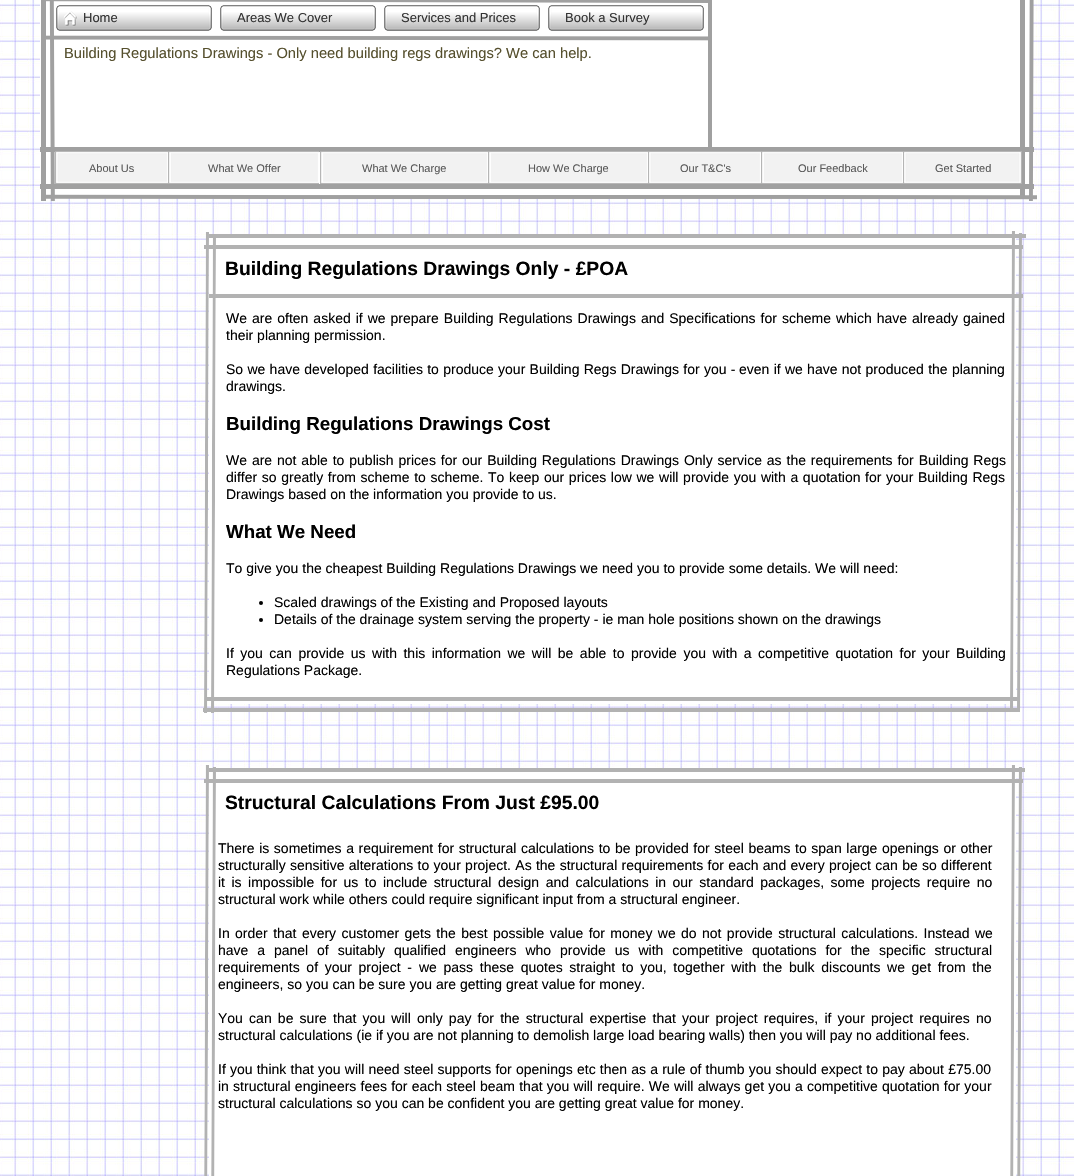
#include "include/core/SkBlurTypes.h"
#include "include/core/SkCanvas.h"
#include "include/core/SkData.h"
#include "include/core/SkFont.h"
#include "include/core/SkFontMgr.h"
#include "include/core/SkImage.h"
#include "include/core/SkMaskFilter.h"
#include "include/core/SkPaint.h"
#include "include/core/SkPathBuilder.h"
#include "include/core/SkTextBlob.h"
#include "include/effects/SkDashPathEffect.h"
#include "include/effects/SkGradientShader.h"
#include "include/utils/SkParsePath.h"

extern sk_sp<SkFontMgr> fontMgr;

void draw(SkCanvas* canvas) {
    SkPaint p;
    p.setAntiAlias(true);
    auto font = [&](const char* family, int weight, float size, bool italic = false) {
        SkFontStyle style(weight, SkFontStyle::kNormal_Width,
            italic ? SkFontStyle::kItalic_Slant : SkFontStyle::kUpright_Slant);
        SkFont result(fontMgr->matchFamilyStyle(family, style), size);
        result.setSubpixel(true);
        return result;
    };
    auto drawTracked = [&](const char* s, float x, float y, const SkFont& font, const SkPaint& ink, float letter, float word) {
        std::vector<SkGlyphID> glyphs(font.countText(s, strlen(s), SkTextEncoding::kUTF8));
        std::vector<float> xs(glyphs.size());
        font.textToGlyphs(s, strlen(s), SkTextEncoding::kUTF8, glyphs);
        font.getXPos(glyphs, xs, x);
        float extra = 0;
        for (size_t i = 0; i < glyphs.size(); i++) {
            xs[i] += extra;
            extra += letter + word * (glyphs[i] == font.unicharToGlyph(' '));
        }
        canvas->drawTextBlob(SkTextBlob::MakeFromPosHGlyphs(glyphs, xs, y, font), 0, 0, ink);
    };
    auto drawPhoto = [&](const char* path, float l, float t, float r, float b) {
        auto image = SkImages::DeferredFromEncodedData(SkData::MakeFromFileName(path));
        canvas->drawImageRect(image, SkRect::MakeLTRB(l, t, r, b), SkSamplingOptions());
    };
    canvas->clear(0xFFFFFFFF);
    drawPhoto("media/1.png", 0, 0, 1074, 1176);
    p.setColor(0xFFFFFFFF);
    canvas->drawRect(SkRect::MakeLTRB(40, 0, 1030, 197), p);
    p.setColor(0xFFA0A0A0);
    canvas->drawRect(SkRect::MakeLTRB(41, 0, 46, 201), p);
    drawPhoto("media/4.png", 49, 1, 55, 201);
    drawPhoto("media/2.png", 46, 0, 708, 3);
    {
        const struct { float l, t, r, b; SkColor color; } items[] = {
            {708, 0, 712, 147, 0xFFA0A0A0},
            {40, 147, 1034, 152, 0xFFA0A0A0},
            {1020, 0, 1025, 199, 0xFFA0A0A0},
        };
        for (auto [l, t, r, b, color] : items) {
            p.setColor(color);
            canvas->drawRect(SkRect::MakeLTRB(l, t, r, b), p);
        }
    }
    drawPhoto("media/3.png", 1029, 0, 1034, 201);
    drawPhoto("media/5.png", 56, 5, 212, 31);
    auto font1 = font("Liberation Sans", 400, 13);
    p.setColor(0xFF333333);
    canvas->drawString("Home", 83, 22, font1, p);
    drawPhoto("media/6.png", 220, 5, 376, 31);
    canvas->drawString("Areas We Cover", 237, 22, font1, p);
    drawPhoto("media/6.png", 384, 5, 540, 31);
    canvas->drawString("Services and Prices", 401, 22, font1, p);
    drawPhoto("media/6.png", 548, 5, 704, 31);
    canvas->drawString("Book a Survey", 565, 22, font1, p);
    drawPhoto("media/7.png", 46, 35, 708, 41);
    auto font2 = font("Liberation Sans", 400, 14.7f);
    p.setColor(0xFF554F2D);
    canvas->drawString("Building Regulations Drawings - Only need building regs drawings? We can help.", 64, 58, font2, p);
    drawPhoto("media/8.png", 55, 151, 168, 184);
    auto font3 = font("Liberation Sans", 400, 11);
    p.setColor(0xFF595959);
    canvas->drawString("About Us", 89, 172, font3, p);
    drawPhoto("media/9.png", 168, 151, 319, 184);
    canvas->drawString("What We Offer", 208, 172, font3, p);
    drawPhoto("media/10.png", 320, 151, 488, 184);
    canvas->drawString("What We Charge", 362, 172, font3, p);
    drawPhoto("media/11.png", 488, 151, 648, 184);
    canvas->drawString("How We Charge", 528, 172, font3, p);
    drawPhoto("media/12.png", 648, 151, 761, 184);
    canvas->drawString("Our T&C's", 680, 172, font3, p);
    drawPhoto("media/13.png", 761, 151, 903, 184);
    canvas->drawString("Our Feedback", 798, 172, font3, p);
    drawPhoto("media/14.png", 903, 151, 1022, 184);
    canvas->drawString("Get Started", 935, 172, font3, p);
    p.setColor(0xFFA0A0A0);
    canvas->drawRect(SkRect::MakeLTRB(40, 184, 1034, 189), p);
    drawPhoto("media/15.png", 46, 194, 1037, 200);
    {
        const struct { float l, t, r, b; SkColor color; } items[] = {
            {209, 238, 1016, 704, 0xFFFFFFFF},
            {204, 245, 1023, 249, 0xFFB2B2B2},
            {206, 697, 1019, 701, 0xFFB2B2B2},
            {203, 708, 1020, 712, 0xFFB2B2B2},
        };
        for (auto [l, t, r, b, color] : items) {
            p.setColor(color);
            canvas->drawRect(SkRect::MakeLTRB(l, t, r, b), p);
        }
    }
    drawPhoto("media/16.png", 204, 232, 209, 713);
    canvas->drawRect(SkRect::MakeLTRB(209, 234, 1026, 238), p);
    canvas->drawRect(SkRect::MakeLTRB(209, 294, 1023, 298), p);
    drawPhoto("media/17.png", 1010, 231, 1015, 708);
    drawPhoto("media/18.png", 1017, 233, 1022, 708);
    drawPhoto("media/19.png", 211, 238, 216, 713);
    auto font4 = font("Liberation Sans", 700, 19.3f);
    p.setColor(0xFF000000);
    canvas->drawString("Building Regulations Drawings Only - £POA", 225, 275, font4, p);
    auto font5 = font("Liberation Sans", 400, 14);
    drawTracked("We are often asked if we prepare Building Regulations Drawings and Specifications for scheme which have already gained", 226, 323, font5, p, 0, 1.1f);
    canvas->drawString("their planning permission.", 226, 340, font5, p);
    drawTracked("So we have developed facilities to produce your Building Regs Drawings for you -", 226, 374, font5, p, 0, 0.4f);
    drawTracked("even if we have not produced the planning", 739, 374, font5, p, 0, 0.4f);
    canvas->drawString("drawings.", 226, 391, font5, p);
    auto font6 = font("Liberation Sans", 700, 18.75f);
    canvas->drawString("Building Regulations Drawings Cost", 226, 430, font6, p);
    drawTracked("We are not able to publish prices for our Building Regulations Drawings Only service as the requirements for Building Regs", 226, 465, font5, p, 0, 1);
    drawTracked("differ so greatly from scheme to scheme. To keep our prices low we will provide you with a quotation for your Building Regs", 226, 482, font5, p, 0, 0.75f);
    canvas->drawString("Drawings based on the information you provide to us.", 226, 499, font5, p);
    canvas->drawString("What We Need", 226, 538, font6, p);
    canvas->drawString("To give you the cheapest Building Regulations Drawings we need you to provide some details. We will need:", 226, 573, font5, p);
    canvas->drawCircle(261, 603, 2, p);
    canvas->drawString("Scaled drawings of the Existing and Proposed layouts", 274, 607, font5, p);
    canvas->drawCircle(261, 620, 2, p);
    canvas->drawString("Details of the drainage system serving the property - ie man hole positions shown on the drawings", 274, 624, font5, p);
    drawTracked("If you can provide us with this information we will be able to provide you with a competitive quotation for your Building", 226, 658, font5, p, 0, 2.6f);
    canvas->drawString("Regulations Package.", 226, 675, font5, p);
    drawPhoto("media/20.png", 204, 765, 209, 1176);
    {
        const struct { float l, t, r, b; SkColor color; } items[] = {
            {209, 768, 1025, 772, 0xFFB2B2B2},
            {209, 772, 1016, 1176, 0xFFFFFFFF},
            {204, 779, 1023, 783, 0xFFB2B2B2},
        };
        for (auto [l, t, r, b, color] : items) {
            p.setColor(color);
            canvas->drawRect(SkRect::MakeLTRB(l, t, r, b), p);
        }
    }
    drawPhoto("media/21.png", 211, 767, 216, 1176);
    drawPhoto("media/22.png", 1010, 765, 1015, 1176);
    drawPhoto("media/23.png", 1017, 767, 1022, 1176);
    p.setColor(0xFF000000);
    canvas->drawString("Structural Calculations From Just £95.00", 225, 809, font4, p);
    drawTracked("There is sometimes a requirement for structural calculations to be provided for steel beams to span large openings or other", 218, 853, font5, p, 0, 0.7f);
    drawTracked("structurally sensitive alterations to your project. As the structural requirements for each and every project can be so different", 218, 870, font5, p, 0, 0.4f);
    drawTracked("it is impossible for us to include structural design and calculations in our standard packages, some projects require no", 218, 887, font5, p, 0, 2.6f);
    canvas->drawString("structural work while others could require significant input from a structural engineer.", 218, 904, font5, p);
    drawTracked("In order that every customer gets the best possible value for money we do not provide structural calculations. Instead we", 218, 938, font5, p, 0, 1.5f);
    drawTracked("have a panel of suitably qualified engineers who provide us with competitive quotations for the specific structural", 218, 955, font5, p, 0, 5);
    drawTracked("requirements of your project -", 218, 972, font5, p, 0, 2.75f);
    drawTracked("we pass these quotes straight to you, together with the bulk discounts we get from the", 419, 972, font5, p, 0, 2.75f);
    canvas->drawString("engineers, so you can be sure you are getting great value for money.", 218, 989, font5, p);
    drawTracked("You can be sure that you will only pay for the structural expertise that your project requires, if your project requires no", 218, 1023, font5, p, 0, 2.3f);
    canvas->drawString("structural calculations (ie if you are not planning to demolish large load bearing walls) then you will pay no additional fees.", 218, 1040, font5, p);
    drawTracked("If you think that you will need steel supports for openings etc then as a rule of thumb you should expect to pay about £75.00", 218, 1074, font5, p, 0, 0.3f);
    drawTracked("in structural engineers fees for each steel beam that you will require. We will always get you a competitive quotation for your", 218, 1091, font5, p, 0, 0.3f);
    canvas->drawString("structural calculations so you can be confident you are getting great value for money.", 218, 1108, font5, p);
}
